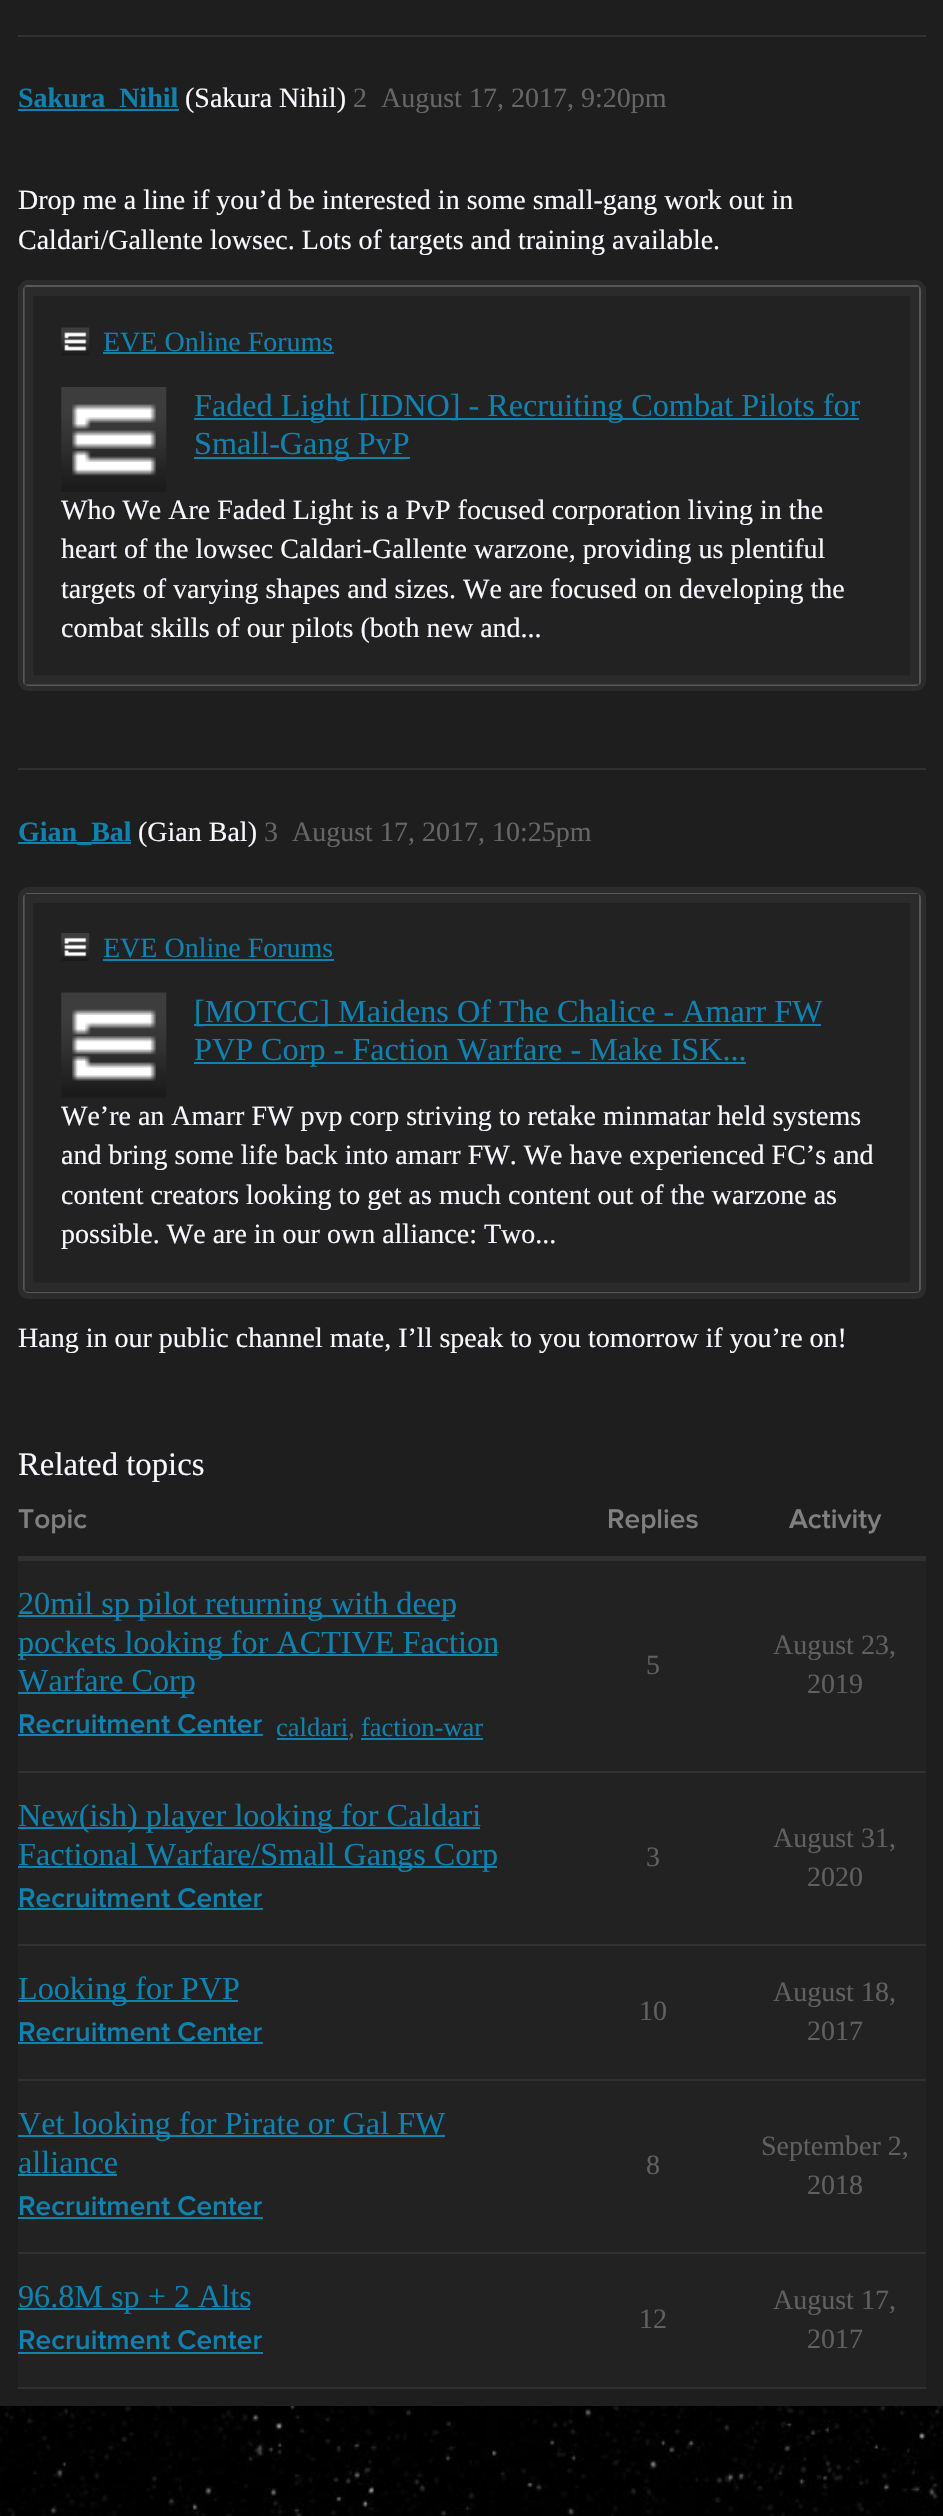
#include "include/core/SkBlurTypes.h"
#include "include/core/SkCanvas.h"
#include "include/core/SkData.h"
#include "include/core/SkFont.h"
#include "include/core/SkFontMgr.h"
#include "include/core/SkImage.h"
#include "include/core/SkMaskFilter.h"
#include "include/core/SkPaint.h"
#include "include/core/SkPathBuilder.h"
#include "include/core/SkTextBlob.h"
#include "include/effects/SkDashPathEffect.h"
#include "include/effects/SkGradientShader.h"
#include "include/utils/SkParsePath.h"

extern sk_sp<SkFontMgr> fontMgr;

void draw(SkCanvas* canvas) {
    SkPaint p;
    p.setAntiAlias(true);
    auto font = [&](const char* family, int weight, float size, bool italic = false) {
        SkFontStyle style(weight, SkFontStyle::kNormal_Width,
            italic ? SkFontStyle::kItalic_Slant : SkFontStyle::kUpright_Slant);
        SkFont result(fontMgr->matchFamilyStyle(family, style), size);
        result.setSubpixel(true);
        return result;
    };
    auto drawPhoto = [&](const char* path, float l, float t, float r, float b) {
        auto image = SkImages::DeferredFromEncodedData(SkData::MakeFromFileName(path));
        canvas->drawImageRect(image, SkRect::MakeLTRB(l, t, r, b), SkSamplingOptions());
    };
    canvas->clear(0xFFFFFFFF);
    drawPhoto("media/1.png", 0, 2406, 943, 2516);
    {
        const struct { float l, t, r, b; SkColor color; } items[] = {
            {0, 0, 943, 2406, 0xFF1E1E1E},
            {18, 35, 926, 37, 0xFF313131},
            {18, 109, 179, 111, 0xFF0F82AF},
        };
        for (auto [l, t, r, b, color] : items) {
            p.setColor(color);
            canvas->drawRect(SkRect::MakeLTRB(l, t, r, b), p);
        }
    }
    auto font1 = font("Liberation Serif", 700, 28);
    canvas->drawString("Sakura_Nihil", 18, 107, font1, p);
    auto font2 = font("Liberation Serif", 400, 28);
    p.setColor(0xFFF8F8FF);
    canvas->drawString("(Sakura Nihil)", 185, 107, font2, p);
    p.setColor(0xFF666666);
    canvas->drawString("2", 353, 107, font2, p);
    canvas->drawString("August 17, 2017, 9:20pm", 381, 107, font2, p);
    p.setColor(0xFFF8F8FF);
    canvas->drawString("Drop me a line if you’d be interested in some small-gang work out in", 18, 209, font2, p);
    canvas->drawString("Caldari/Gallente lowsec. Lots of targets and training available.", 18, 249, font2, p);
    p.setStyle(SkPaint::kStroke_Style);
    p.setStrokeWidth(7);
    p.setColor(0xFF2C2C2C);
    canvas->drawRoundRect(SkRect::MakeLTRB(21.5f, 283.5f, 922.5f, 687.5f), 7.5f, 7.5f, p);
    p.setStrokeWidth(2);
    p.setColor(0xFF585858);
    canvas->drawRoundRect(SkRect::MakeLTRB(24, 286, 920, 685), 4, 4, p);
    p.setStyle(SkPaint::kFill_Style);
    p.setColor(0xFF222222);
    canvas->drawRoundRect(SkRect::MakeLTRB(25, 287, 919, 684), 4, 4, p);
    p.setStyle(SkPaint::kStroke_Style);
    p.setStrokeWidth(8.8f);
    p.setColor(0xFF2B2B2B);
    canvas->drawPath(SkPathBuilder().moveTo(29, 291.5f).lineTo(914.5f, 291.5f).lineTo(914.5f, 680).lineTo(29, 680).close().detach(), p);
    drawPhoto("media/2.png", 61, 327, 90, 356);
    p.setStyle(SkPaint::kFill_Style);
    p.setColor(0xFF0F82AF);
    canvas->drawString("EVE Online Forums", 103, 351, font2, p);
    canvas->drawRect(SkRect::MakeLTRB(103, 352, 334, 354), p);
    drawPhoto("media/3.png", 61, 387, 167, 492);
    canvas->drawRect(SkRect::MakeLTRB(194, 418, 859, 420), p);
    auto font3 = font("Liberation Serif", 400, 32.2f);
    canvas->drawString("Faded Light [IDNO] - Recruiting Combat Pilots for", 194, 416, font3, p);
    canvas->drawRect(SkRect::MakeLTRB(194, 457, 410, 459), p);
    canvas->drawString("Small-Gang PvP", 194, 454, font3, p);
    p.setColor(0xFFF8F8FF);
    {
        const struct { const char* s; float x, y; } items[] = {
            {"Who We Are Faded Light is a PvP focused corporation living in the", 61, 519},
            {"heart of the lowsec Caldari-Gallente warzone, providing us plentiful", 61, 558},
            {"targets of varying shapes and sizes. We are focused on developing the", 61, 598},
            {"combat skills of our pilots (both new and...", 61, 637},
        };
        for (auto [s, x, y] : items) {
            canvas->drawString(s, x, y, font2, p);
        }
    }
    p.setColor(0xFF313131);
    canvas->drawRect(SkRect::MakeLTRB(18, 768, 926, 770), p);
    p.setColor(0xFF0F82AF);
    canvas->drawRect(SkRect::MakeLTRB(18, 842, 131, 844), p);
    canvas->drawString("Gian_Bal", 18, 841, font1, p);
    p.setColor(0xFFF8F8FF);
    canvas->drawString("(Gian Bal)", 138, 841, font2, p);
    p.setColor(0xFF666666);
    canvas->drawString("3", 264, 841, font2, p);
    canvas->drawString("August 17, 2017, 10:25pm", 292, 841, font2, p);
    p.setStyle(SkPaint::kStroke_Style);
    p.setStrokeWidth(7);
    p.setColor(0xFF2C2C2C);
    canvas->drawRoundRect(SkRect::MakeLTRB(21.5f, 890.5f, 922.5f, 1295.5f), 7.5f, 7.5f, p);
    p.setStrokeWidth(2);
    p.setColor(0xFF585858);
    canvas->drawRoundRect(SkRect::MakeLTRB(24, 894, 920, 1292), 4, 4, p);
    p.setStyle(SkPaint::kFill_Style);
    p.setColor(0xFF222222);
    canvas->drawRoundRect(SkRect::MakeLTRB(25, 894, 919, 1292), 4, 4, p);
    p.setStyle(SkPaint::kStroke_Style);
    p.setStrokeWidth(8.8f);
    p.setColor(0xFF2B2B2B);
    canvas->drawPath(SkPathBuilder().moveTo(29, 898.5f).lineTo(914.5f, 898.5f).lineTo(914.5f, 1287).lineTo(29, 1287).close().detach(), p);
    drawPhoto("media/4.png", 61, 933, 90, 961);
    p.setStyle(SkPaint::kFill_Style);
    p.setColor(0xFF0F82AF);
    canvas->drawString("EVE Online Forums", 103, 957, font2, p);
    canvas->drawRect(SkRect::MakeLTRB(103, 959, 334, 961), p);
    drawPhoto("media/5.png", 61, 992, 167, 1098);
    canvas->drawRect(SkRect::MakeLTRB(194, 1024, 821, 1026), p);
    canvas->drawString("[MOTCC] Maidens Of The Chalice - Amarr FW", 194, 1022, font3, p);
    canvas->drawRect(SkRect::MakeLTRB(194, 1062, 746, 1064), p);
    canvas->drawString("PVP Corp - Faction Warfare - Make ISK...", 194, 1060, font3, p);
    p.setColor(0xFFF8F8FF);
    {
        const struct { const char* s; float x, y; } items[] = {
            {"We’re an Amarr FW pvp corp striving to retake minmatar held systems", 61, 1125},
            {"and bring some life back into amarr FW. We have experienced FC’s and", 61, 1164},
            {"content creators looking to get as much content out of the warzone as", 61, 1204},
            {"possible. We are in our own alliance: Two...", 61, 1243},
            {"Hang in our public channel mate, I’ll speak to you tomorrow if you’re on!", 18, 1347},
        };
        for (auto [s, x, y] : items) {
            canvas->drawString(s, x, y, font2, p);
        }
    }
    auto font4 = font("Liberation Serif", 400, 32.75f);
    canvas->drawString("Related topics", 18, 1475, font4, p);
    auto font5 = font("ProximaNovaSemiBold", 600, 28);
    p.setColor(0xFF808080);
    {
        const struct { const char* s; float x, y; } items[] = {
            {"Topic", 18, 1528},
            {"Replies", 607, 1528},
            {"Activity", 789, 1528},
        };
        for (auto [s, x, y] : items) {
            canvas->drawString(s, x, y, font5, p);
        }
    }
    {
        const struct { float l, t, r, b; SkColor color; } items[] = {
            {18, 1556, 926, 1561, 0xFF313131},
            {18, 1561, 926, 1771, 0xFF222222},
            {18, 1771, 926, 1773, 0xFF313131},
            {18, 1615, 455, 1617, 0xFF0F82AF},
        };
        for (auto [l, t, r, b, color] : items) {
            p.setColor(color);
            canvas->drawRect(SkRect::MakeLTRB(l, t, r, b), p);
        }
    }
    canvas->drawString("20mil sp pilot returning with deep", 18, 1614, font3, p);
    canvas->drawRect(SkRect::MakeLTRB(18, 1654, 497, 1656), p);
    canvas->drawString("pockets looking for ACTIVE Faction", 18, 1653, font3, p);
    canvas->drawRect(SkRect::MakeLTRB(18, 1692, 194, 1694), p);
    canvas->drawString("Warfare Corp", 18, 1691, font3, p);
    canvas->drawString("Recruitment Center", 18, 1733, font5, p);
    canvas->drawRect(SkRect::MakeLTRB(18, 1734, 263, 1736), p);
    canvas->save();
    canvas->clipRect(SkRect::MakeLTRB(277, 1708, 348, 1745));
    auto font6 = font("Liberation Serif", 400, 26.5f);
    canvas->drawString("caldari", 276, 1736, font6, p);
    canvas->restore();
    canvas->drawRect(SkRect::MakeLTRB(277, 1738, 348, 1740), p);
    p.setColor(0xFF606060);
    canvas->drawString(",", 348, 1736, font6, p);
    canvas->save();
    canvas->clipRect(SkRect::MakeLTRB(361, 1708, 483, 1745));
    p.setColor(0xFF0F82AF);
    canvas->drawString("faction-war", 361, 1736, font6, p);
    canvas->restore();
    canvas->drawRect(SkRect::MakeLTRB(361, 1738, 483, 1740), p);
    p.setColor(0xFF606060);
    {
        const struct { const char* s; float x, y; } items[] = {
            {"5", 646, 1674},
            {"August 23,", 773, 1654},
            {"2019", 807, 1693},
        };
        for (auto [s, x, y] : items) {
            canvas->drawString(s, x, y, font2, p);
        }
    }
    {
        const struct { float l, t, r, b; SkColor color; } items[] = {
            {18, 1773, 926, 1944, 0xFF222222},
            {18, 1944, 926, 1946, 0xFF313131},
            {18, 1827, 480, 1829, 0xFF0F82AF},
        };
        for (auto [l, t, r, b, color] : items) {
            p.setColor(color);
            canvas->drawRect(SkRect::MakeLTRB(l, t, r, b), p);
        }
    }
    canvas->drawString("New(ish) player looking for Caldari", 18, 1826, font3, p);
    canvas->drawRect(SkRect::MakeLTRB(18, 1866, 497, 1868), p);
    canvas->drawString("Factional Warfare/Small Gangs Corp", 18, 1865, font3, p);
    canvas->drawString("Recruitment Center", 18, 1907, font5, p);
    canvas->drawRect(SkRect::MakeLTRB(18, 1908, 263, 1910), p);
    p.setColor(0xFF606060);
    {
        const struct { const char* s; float x, y; } items[] = {
            {"3", 646, 1866},
            {"August 31,", 773, 1847},
            {"2020", 807, 1886},
        };
        for (auto [s, x, y] : items) {
            canvas->drawString(s, x, y, font2, p);
        }
    }
    {
        const struct { float l, t, r, b; SkColor color; } items[] = {
            {18, 1946, 926, 2079, 0xFF222222},
            {18, 2079, 926, 2081, 0xFF313131},
            {18, 2000, 238, 2002, 0xFF0F82AF},
        };
        for (auto [l, t, r, b, color] : items) {
            p.setColor(color);
            canvas->drawRect(SkRect::MakeLTRB(l, t, r, b), p);
        }
    }
    canvas->drawString("Looking for PVP", 18, 1999, font3, p);
    canvas->drawString("Recruitment Center", 18, 2041, font5, p);
    canvas->drawRect(SkRect::MakeLTRB(18, 2042, 263, 2044), p);
    p.setColor(0xFF606060);
    {
        const struct { const char* s; float x, y; } items[] = {
            {"10", 639, 2020},
            {"August 18,", 773, 2001},
            {"2017", 807, 2040},
        };
        for (auto [s, x, y] : items) {
            canvas->drawString(s, x, y, font2, p);
        }
    }
    {
        const struct { float l, t, r, b; SkColor color; } items[] = {
            {18, 2081, 926, 2252, 0xFF222222},
            {18, 2252, 926, 2254, 0xFF313131},
            {18, 2135, 445, 2137, 0xFF0F82AF},
        };
        for (auto [l, t, r, b, color] : items) {
            p.setColor(color);
            canvas->drawRect(SkRect::MakeLTRB(l, t, r, b), p);
        }
    }
    canvas->drawString("Vet looking for Pirate or Gal FW", 18, 2134, font3, p);
    canvas->drawString("alliance", 18, 2173, font3, p);
    canvas->drawRect(SkRect::MakeLTRB(18, 2174, 117, 2176), p);
    canvas->drawString("Recruitment Center", 18, 2215, font5, p);
    canvas->drawRect(SkRect::MakeLTRB(18, 2217, 263, 2219), p);
    p.setColor(0xFF606060);
    {
        const struct { const char* s; float x, y; } items[] = {
            {"8", 646, 2174},
            {"September 2,", 761, 2155},
            {"2018", 807, 2194},
        };
        for (auto [s, x, y] : items) {
            canvas->drawString(s, x, y, font2, p);
        }
    }
    {
        const struct { float l, t, r, b; SkColor color; } items[] = {
            {18, 2254, 926, 2387, 0xFF222222},
            {18, 2387, 926, 2389, 0xFF313131},
            {18, 2308, 250, 2310, 0xFF0F82AF},
        };
        for (auto [l, t, r, b, color] : items) {
            p.setColor(color);
            canvas->drawRect(SkRect::MakeLTRB(l, t, r, b), p);
        }
    }
    canvas->drawString("96.8M sp + 2 Alts", 18, 2307, font3, p);
    canvas->drawString("Recruitment Center", 18, 2349, font5, p);
    canvas->drawRect(SkRect::MakeLTRB(18, 2352, 263, 2354), p);
    p.setColor(0xFF606060);
    {
        const struct { const char* s; float x, y; } items[] = {
            {"12", 639, 2328},
            {"August 17,", 773, 2309},
            {"2017", 807, 2348},
        };
        for (auto [s, x, y] : items) {
            canvas->drawString(s, x, y, font2, p);
        }
    }
}
